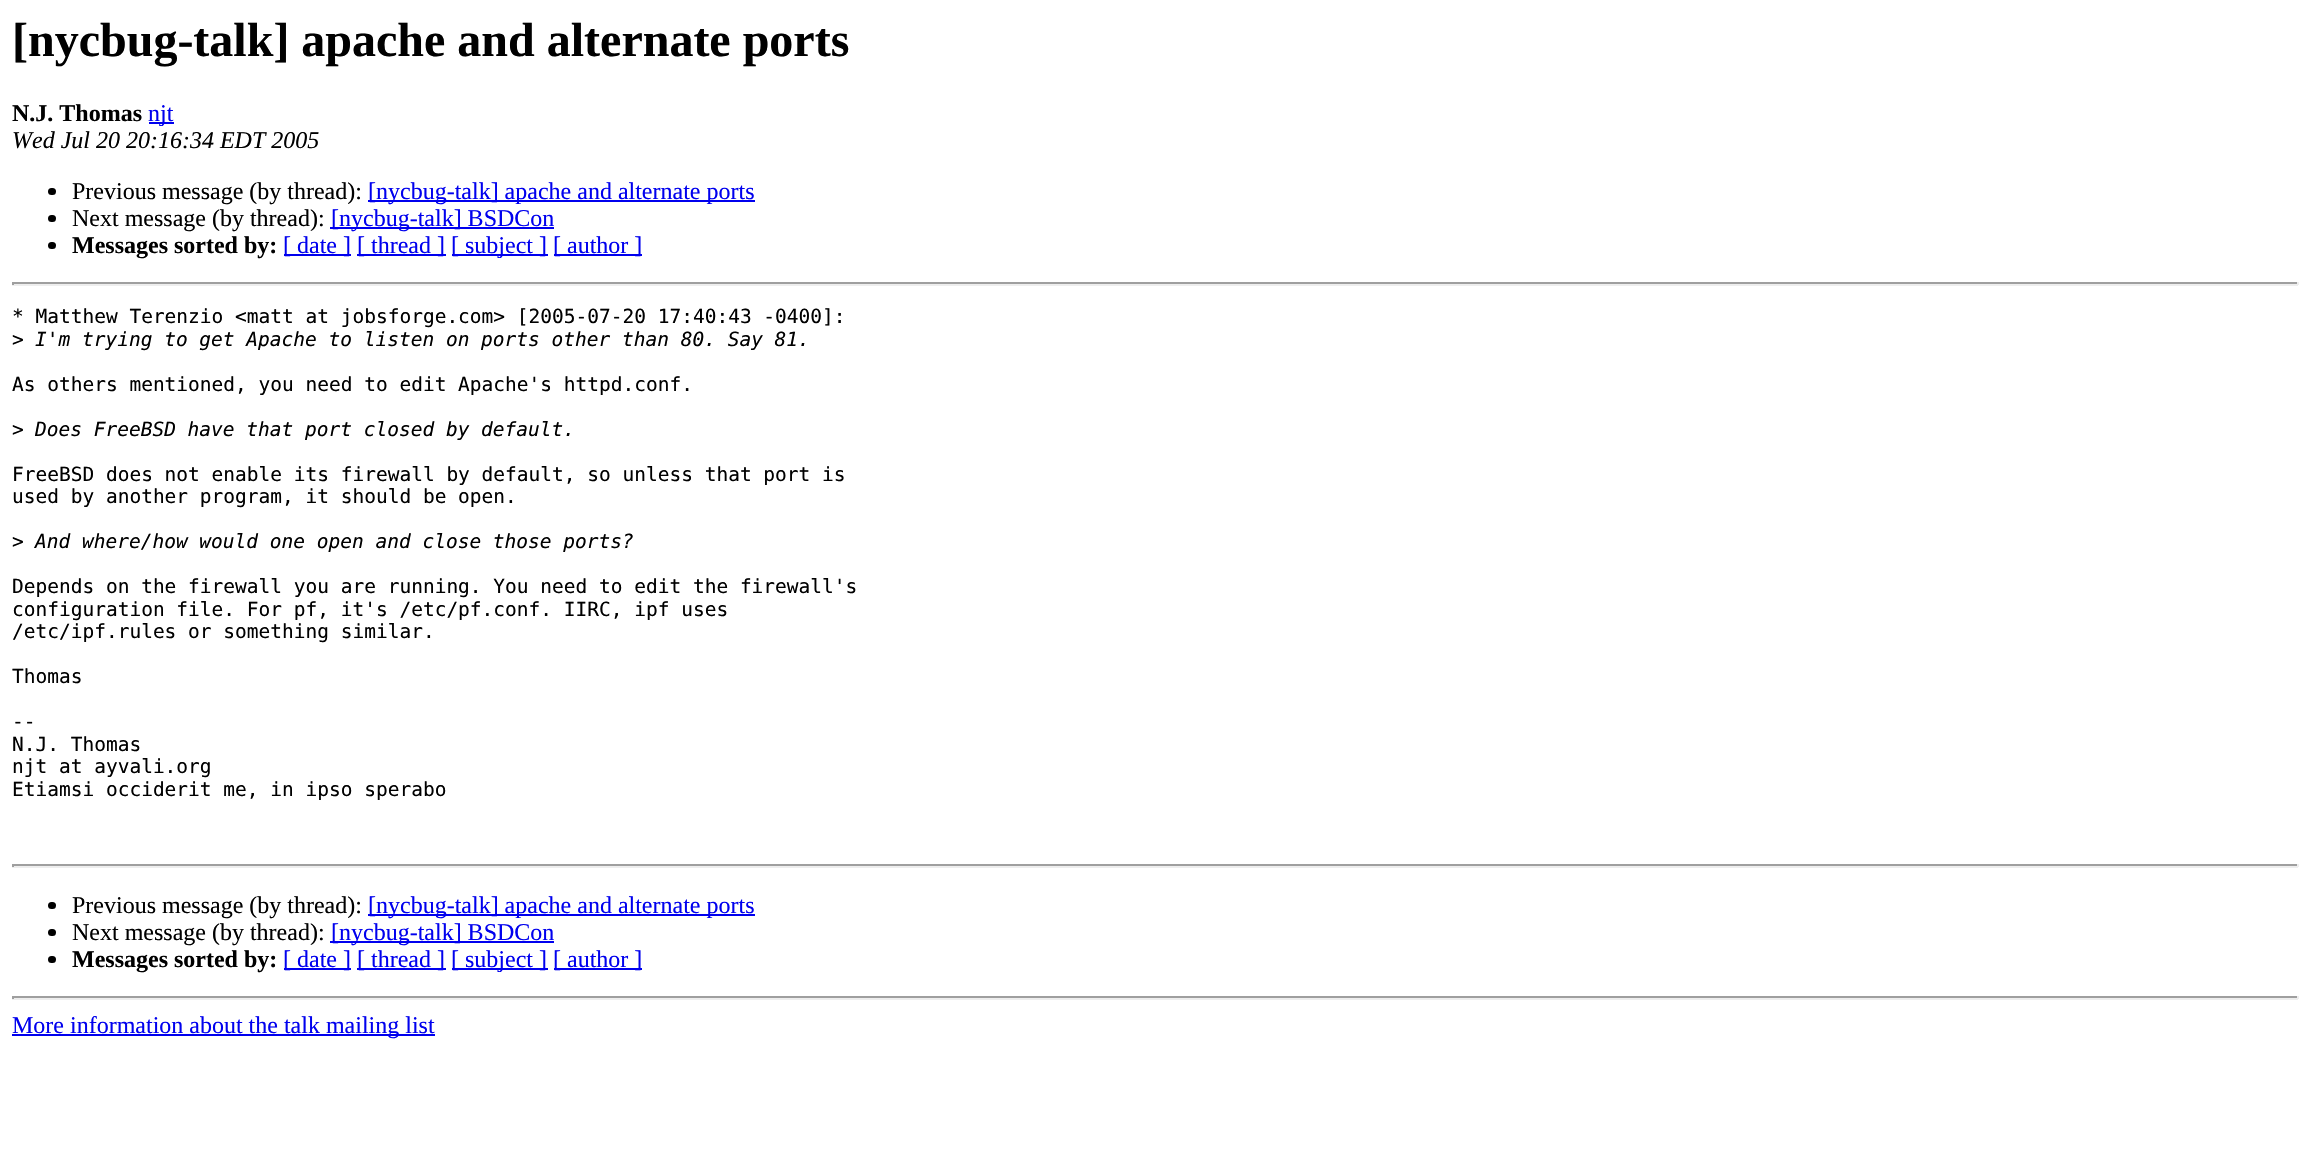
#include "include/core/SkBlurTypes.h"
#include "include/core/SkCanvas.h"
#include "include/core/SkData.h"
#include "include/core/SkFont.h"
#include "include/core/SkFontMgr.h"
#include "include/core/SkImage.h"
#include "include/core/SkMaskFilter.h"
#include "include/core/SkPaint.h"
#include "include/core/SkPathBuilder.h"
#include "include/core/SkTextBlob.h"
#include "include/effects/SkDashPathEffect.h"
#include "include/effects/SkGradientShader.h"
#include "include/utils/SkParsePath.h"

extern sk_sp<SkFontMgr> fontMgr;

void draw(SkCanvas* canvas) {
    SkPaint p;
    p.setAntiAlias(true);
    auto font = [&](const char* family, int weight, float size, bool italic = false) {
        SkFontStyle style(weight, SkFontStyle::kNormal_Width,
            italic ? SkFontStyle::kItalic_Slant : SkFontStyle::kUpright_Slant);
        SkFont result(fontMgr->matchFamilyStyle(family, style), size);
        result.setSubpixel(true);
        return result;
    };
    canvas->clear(0xFFFFFFFF);
    auto font1 = font("Liberation Serif", 700, 48);
    p.setColor(0xFF000000);
    canvas->drawString("[nycbug-talk] apache and alternate ports", 12, 56, font1, p);
    auto font2 = font("Liberation Serif", 700, 24);
    canvas->drawString("N.J. Thomas", 12, 121, font2, p);
    p.setColor(0xFF0000EE);
    canvas->drawRect(SkRect::MakeLTRB(149, 122, 174, 124), p);
    auto font3 = font("Liberation Serif", 400, 24);
    canvas->drawString("njt", 148, 121, font3, p);
    auto font4 = font("Liberation Serif", 400, 24, true);
    p.setColor(0xFF000000);
    canvas->drawString("Wed Jul 20 20:16:34 EDT 2005", 12, 148, font4, p);
    canvas->drawRoundRect(SkRect::MakeLTRB(48, 188, 56, 195), 3.5f, 3.5f, p);
    canvas->drawString("Previous message (by thread):", 72, 199, font3, p);
    p.setColor(0xFF0000EE);
    canvas->drawRect(SkRect::MakeLTRB(368, 200, 755, 202), p);
    canvas->drawString("[nycbug-talk] apache and alternate ports", 368, 199, font3, p);
    p.setColor(0xFF000000);
    canvas->drawRoundRect(SkRect::MakeLTRB(48, 215, 56, 222), 3.5f, 3.5f, p);
    canvas->drawString("Next message (by thread):", 72, 226, font3, p);
    p.setColor(0xFF0000EE);
    canvas->drawRect(SkRect::MakeLTRB(330, 227, 554, 229), p);
    canvas->drawString("[nycbug-talk] BSDCon", 331, 226, font3, p);
    p.setColor(0xFF000000);
    canvas->drawRoundRect(SkRect::MakeLTRB(48, 242, 56, 249), 3.5f, 3.5f, p);
    canvas->drawString("Messages sorted by:", 72, 253, font2, p);
    p.setColor(0xFF0000EE);
    canvas->drawRect(SkRect::MakeLTRB(284, 254, 351, 256), p);
    canvas->drawString("[ date ]", 283, 253, font3, p);
    canvas->drawRect(SkRect::MakeLTRB(357, 254, 446, 256), p);
    canvas->drawString("[ thread ]", 357, 253, font3, p);
    canvas->drawRect(SkRect::MakeLTRB(452, 254, 548, 256), p);
    canvas->drawString("[ subject ]", 451, 253, font3, p);
    canvas->drawRect(SkRect::MakeLTRB(554, 254, 642, 256), p);
    canvas->drawString("[ author ]", 553, 253, font3, p);
    {
        const struct { float l, t, r, b; SkColor color; } items[] = {
            {12, 282, 2298, 284, 0xFF9F9F9F},
            {2297, 282, 2299, 285, 0xFFEEEEEE},
            {12, 284, 2298, 286, 0xFFEEEEEE},
            {12, 282, 14, 285, 0xFF9F9F9F},
        };
        for (auto [l, t, r, b, color] : items) {
            p.setColor(color);
            canvas->drawRect(SkRect::MakeLTRB(l, t, r, b), p);
        }
    }
    auto font5 = font("DejaVu Sans Mono", 400, 19.5f);
    p.setColor(0xFF000000);
    canvas->drawString("* Matthew Terenzio <matt at jobsforge.com> [2005-07-20 17:40:43 -0400]:", 12, 323, font5, p);
    canvas->drawString(">", 12, 346, font5, p);
    auto font6 = font("DejaVu Sans Mono", 400, 19.5f, true);
    canvas->drawString("I'm trying to get Apache to listen on ports other than 80. Say 81.", 35, 346, font6, p);
    canvas->drawString("As others mentioned, you need to edit Apache's httpd.conf.", 12, 391, font5, p);
    canvas->drawString(">", 12, 436, font5, p);
    canvas->drawString("Does FreeBSD have that port closed by default.", 35, 436, font6, p);
    {
        const struct { const char* s; float x, y; } items[] = {
            {"FreeBSD does not enable its firewall by default, so unless that port is", 12, 481},
            {"used by another program, it should be open.", 12, 503},
            {">", 12, 548},
        };
        for (auto [s, x, y] : items) {
            canvas->drawString(s, x, y, font5, p);
        }
    }
    canvas->drawString("And where/how would one open and close those ports?", 35, 548, font6, p);
    {
        const struct { const char* s; float x, y; } items[] = {
            {"Depends on the firewall you are running. You need to edit the firewall's", 12, 593},
            {"configuration file. For pf, it's /etc/pf.conf. IIRC, ipf uses", 12, 616},
            {"/etc/ipf.rules or something similar.", 12, 638},
            {"Thomas", 12, 683},
            {"--", 12, 728},
            {"N.J. Thomas", 12, 751},
            {"njt at ayvali.org", 12, 773},
            {"Etiamsi occiderit me, in ipso sperabo", 12, 796},
        };
        for (auto [s, x, y] : items) {
            canvas->drawString(s, x, y, font5, p);
        }
    }
    {
        const struct { float l, t, r, b; SkColor color; } items[] = {
            {12, 864, 2298, 866, 0xFF9F9F9F},
            {2297, 864, 2299, 867, 0xFFEEEEEE},
            {12, 866, 2298, 868, 0xFFEEEEEE},
            {12, 864, 14, 867, 0xFF9F9F9F},
        };
        for (auto [l, t, r, b, color] : items) {
            p.setColor(color);
            canvas->drawRect(SkRect::MakeLTRB(l, t, r, b), p);
        }
    }
    p.setColor(0xFF000000);
    canvas->drawRoundRect(SkRect::MakeLTRB(48, 902, 56, 909), 3.5f, 3.5f, p);
    canvas->drawString("Previous message (by thread):", 72, 913, font3, p);
    p.setColor(0xFF0000EE);
    canvas->drawRect(SkRect::MakeLTRB(368, 914, 755, 916), p);
    canvas->drawString("[nycbug-talk] apache and alternate ports", 368, 913, font3, p);
    p.setColor(0xFF000000);
    canvas->drawRoundRect(SkRect::MakeLTRB(48, 929, 56, 936), 3.5f, 3.5f, p);
    canvas->drawString("Next message (by thread):", 72, 940, font3, p);
    p.setColor(0xFF0000EE);
    canvas->drawRect(SkRect::MakeLTRB(330, 941, 554, 943), p);
    canvas->drawString("[nycbug-talk] BSDCon", 331, 940, font3, p);
    p.setColor(0xFF000000);
    canvas->drawRoundRect(SkRect::MakeLTRB(48, 956, 56, 963), 3.5f, 3.5f, p);
    canvas->drawString("Messages sorted by:", 72, 967, font2, p);
    p.setColor(0xFF0000EE);
    canvas->drawRect(SkRect::MakeLTRB(284, 968, 351, 970), p);
    canvas->drawString("[ date ]", 283, 967, font3, p);
    canvas->drawRect(SkRect::MakeLTRB(357, 968, 446, 970), p);
    canvas->drawString("[ thread ]", 357, 967, font3, p);
    canvas->drawRect(SkRect::MakeLTRB(452, 968, 548, 970), p);
    canvas->drawString("[ subject ]", 451, 967, font3, p);
    canvas->drawRect(SkRect::MakeLTRB(554, 968, 642, 970), p);
    canvas->drawString("[ author ]", 553, 967, font3, p);
    {
        const struct { float l, t, r, b; SkColor color; } items[] = {
            {12, 996, 2298, 998, 0xFF9F9F9F},
            {2297, 996, 2299, 999, 0xFFEEEEEE},
            {12, 998, 2298, 1000, 0xFFEEEEEE},
            {12, 996, 14, 999, 0xFF9F9F9F},
            {12, 1034, 435, 1036, 0xFF0000EE},
        };
        for (auto [l, t, r, b, color] : items) {
            p.setColor(color);
            canvas->drawRect(SkRect::MakeLTRB(l, t, r, b), p);
        }
    }
    canvas->drawString("More information about the talk mailing list", 12, 1033, font3, p);
}
